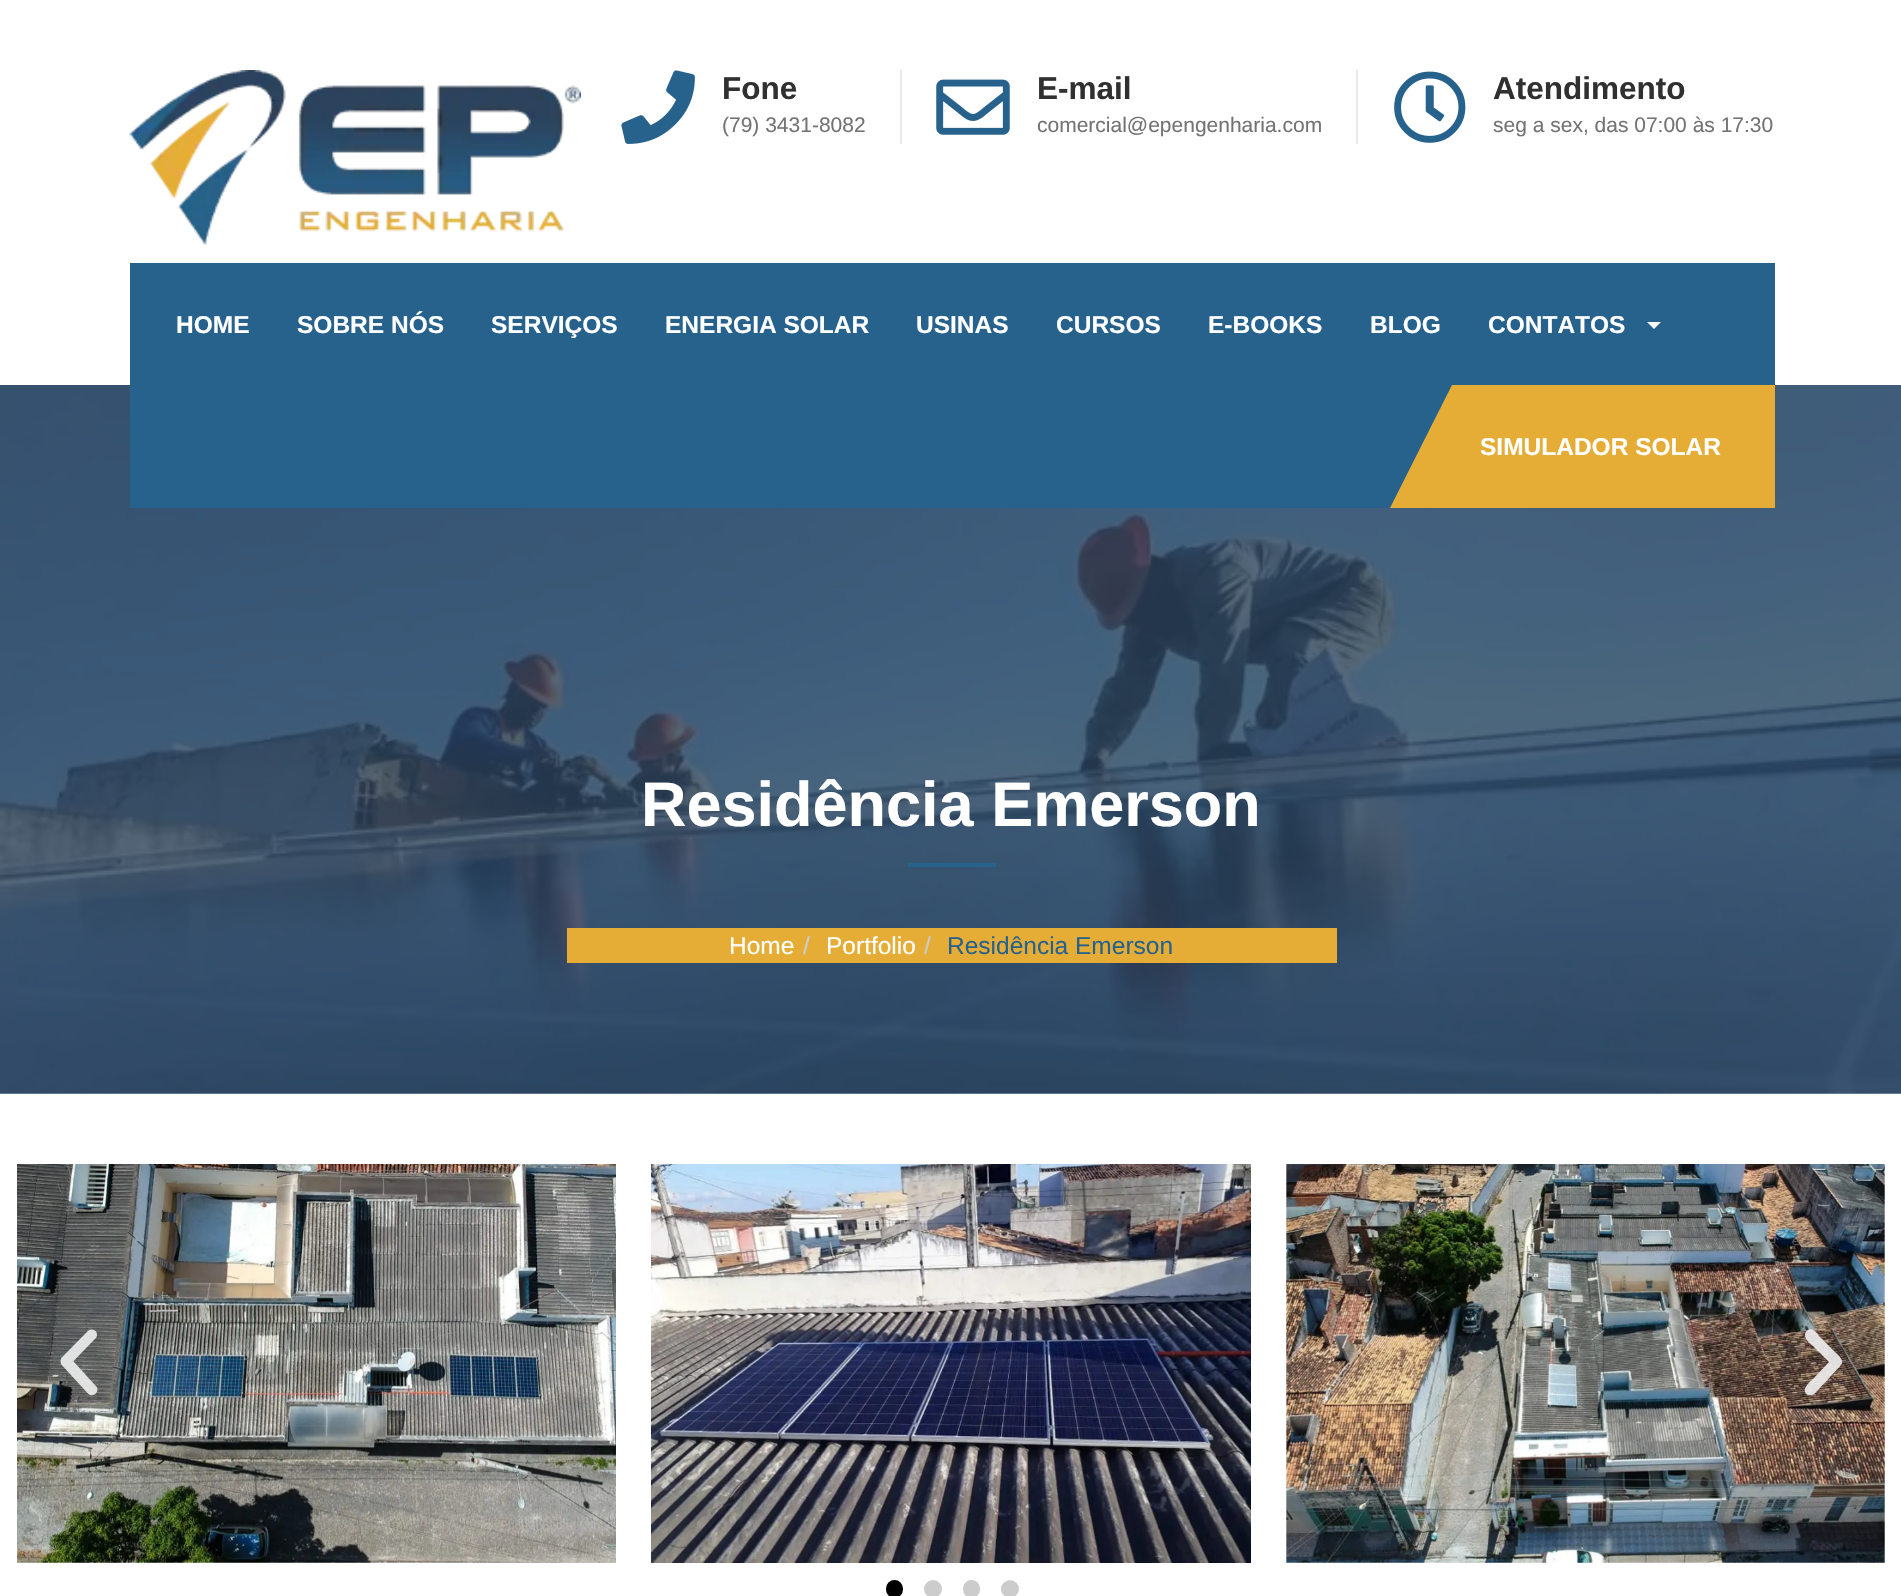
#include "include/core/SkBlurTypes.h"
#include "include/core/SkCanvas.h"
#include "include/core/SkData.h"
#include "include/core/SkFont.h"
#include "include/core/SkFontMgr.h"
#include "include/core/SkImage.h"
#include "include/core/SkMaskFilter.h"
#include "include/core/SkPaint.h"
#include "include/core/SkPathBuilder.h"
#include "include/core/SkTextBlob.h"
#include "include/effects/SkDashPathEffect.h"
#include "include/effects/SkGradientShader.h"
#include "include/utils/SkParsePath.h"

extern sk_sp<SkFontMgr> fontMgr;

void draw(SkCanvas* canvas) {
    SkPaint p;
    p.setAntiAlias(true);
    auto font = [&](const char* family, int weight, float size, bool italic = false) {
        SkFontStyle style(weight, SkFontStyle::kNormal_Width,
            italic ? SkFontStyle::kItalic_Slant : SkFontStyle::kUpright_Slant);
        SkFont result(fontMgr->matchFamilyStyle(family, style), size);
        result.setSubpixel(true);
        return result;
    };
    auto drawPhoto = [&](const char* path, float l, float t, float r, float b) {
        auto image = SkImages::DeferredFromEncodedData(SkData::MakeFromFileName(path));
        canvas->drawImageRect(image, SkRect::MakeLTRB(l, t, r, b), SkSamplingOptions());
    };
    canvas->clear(0xFFFFFFFF);
    drawPhoto("media/1.png", 129, 70, 581, 245);
    drawPhoto("media/2.png", 621, 70, 695, 144);
    auto font1 = font("Liberation Sans", 700, 31.5f);
    p.setColor(0xFF303030);
    canvas->drawString("Fone", 722, 99, font1, p);
    auto font2 = font("Liberation Sans", 400, 21);
    p.setColor(0xFF737373);
    canvas->drawString("(79) 3431-8082", 722, 132, font2, p);
    p.setColor(0xFFE9E9E9);
    canvas->drawRect(SkRect::MakeLTRB(900, 70, 902, 144), p);
    drawPhoto("media/3.png", 936, 79, 1010, 135);
    p.setColor(0xFF303030);
    canvas->drawString("E-mail", 1037, 99, font1, p);
    p.setColor(0xFF737373);
    canvas->drawString("comercial@epengenharia.com", 1037, 132, font2, p);
    p.setColor(0xFFE9E9E9);
    canvas->drawRect(SkRect::MakeLTRB(1356, 70, 1358, 144), p);
    drawPhoto("media/4.png", 1394, 71, 1466, 143);
    p.setColor(0xFF303030);
    canvas->drawString("Atendimento", 1493, 99, font1, p);
    p.setColor(0xFF737373);
    canvas->drawString("seg a sex, das 07:00 às 17:30", 1493, 132, font2, p);
    drawPhoto("media/5.png", 0, 385, 1901, 1094);
    p.setColor(0xFF27628D);
    canvas->drawRect(SkRect::MakeLTRB(130, 263, 1775, 508), p);
    auto font3 = font("Liberation Sans", 700, 24.5f);
    p.setColor(0xFFFFFFFF);
    {
        const struct { const char* s; float x, y; } items[] = {
            {"HOME", 176, 333},
            {"SOBRE NÓS", 297, 333},
            {"SERVIÇOS", 491, 333},
            {"ENERGIA SOLAR", 665, 333},
            {"USINAS", 916, 333},
            {"CURSOS", 1056, 333},
            {"E-BOOKS", 1208, 333},
            {"BLOG", 1370, 333},
            {"CONTATOS", 1488, 333},
        };
        for (auto [s, x, y] : items) {
            canvas->drawString(s, x, y, font3, p);
        }
    }
    canvas->drawPath(SkPathBuilder().moveTo(1647, 322).lineTo(1661, 322).lineTo(1654, 329).close().detach(), p);
    p.setColor(0xFFE5AD36);
    canvas->drawRect(SkRect::MakeLTRB(1648, 385, 1775, 508), p);
    canvas->drawPath(SkPathBuilder().moveTo(1712, 508).lineTo(1390, 508).lineTo(1452, 385).lineTo(1648, 385).close().detach(), p);
    p.setColor(0xFFFFFFFF);
    canvas->drawString("SIMULADOR SOLAR", 1480, 455, font3, p);
    auto font4 = font("Liberation Sans", 700, 63);
    canvas->drawString("Residência Emerson", 641, 826, font4, p);
    p.setColor(0xFF27628D);
    canvas->drawRect(SkRect::MakeLTRB(908, 863, 996, 867), p);
    p.setColor(0xFFE5AD36);
    canvas->drawRect(SkRect::MakeLTRB(567, 928, 1337, 963), p);
    auto font5 = font("Liberation Sans", 400, 24.5f);
    p.setColor(0xFFFFFFFF);
    canvas->drawString("Home", 729, 954, font5, p);
    p.setColor(0xFFCCCCCC);
    canvas->drawString("/", 803, 954, font5, p);
    p.setColor(0xFFFFFFFF);
    canvas->drawString("Portfolio", 826, 954, font5, p);
    p.setColor(0xFFCCCCCC);
    canvas->drawString("/", 924, 954, font5, p);
    p.setColor(0xFF27628D);
    canvas->drawString("Residência Emerson", 947, 954, font5, p);
    drawPhoto("media/6.png", 17, 1164, 616, 1563);
    drawPhoto("media/7.png", 651, 1164, 1251, 1563);
    drawPhoto("media/8.png", 1286, 1164, 1885, 1563);
    drawPhoto("media/9.png", 60, 1329, 98, 1396);
    p.setColor(0xE6EEEEEE);
    canvas->drawPath(SkPathBuilder().moveTo(1841, 1365).cubicTo(1845, 1361, 1839, 1356, 1836, 1353).lineTo(1819, 1336).cubicTo(1817, 1333, 1812, 1327, 1808, 1330).cubicTo(1806, 1331, 1805, 1333, 1805, 1335).cubicTo(1805, 1340, 1811, 1344, 1814, 1347).lineTo(1829, 1362).lineTo(1814, 1378).cubicTo(1811, 1381, 1803, 1387, 1805, 1392).cubicTo(1806, 1394, 1807, 1395, 1809, 1395).cubicTo(1814, 1396, 1816, 1392, 1819, 1389).close().detach(), p);
    p.setColor(0xFF000000);
    canvas->drawRoundRect(SkRect::MakeLTRB(886, 1580, 903, 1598), 8.5f, 8.5f, p);
    p.setColor(0xFFCCCCCC);
    canvas->drawCircle(933, 1589, 9, p);
    canvas->drawRoundRect(SkRect::MakeLTRB(963, 1580, 980, 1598), 8.5f, 8.5f, p);
    canvas->drawCircle(1010, 1589, 9, p);
}
